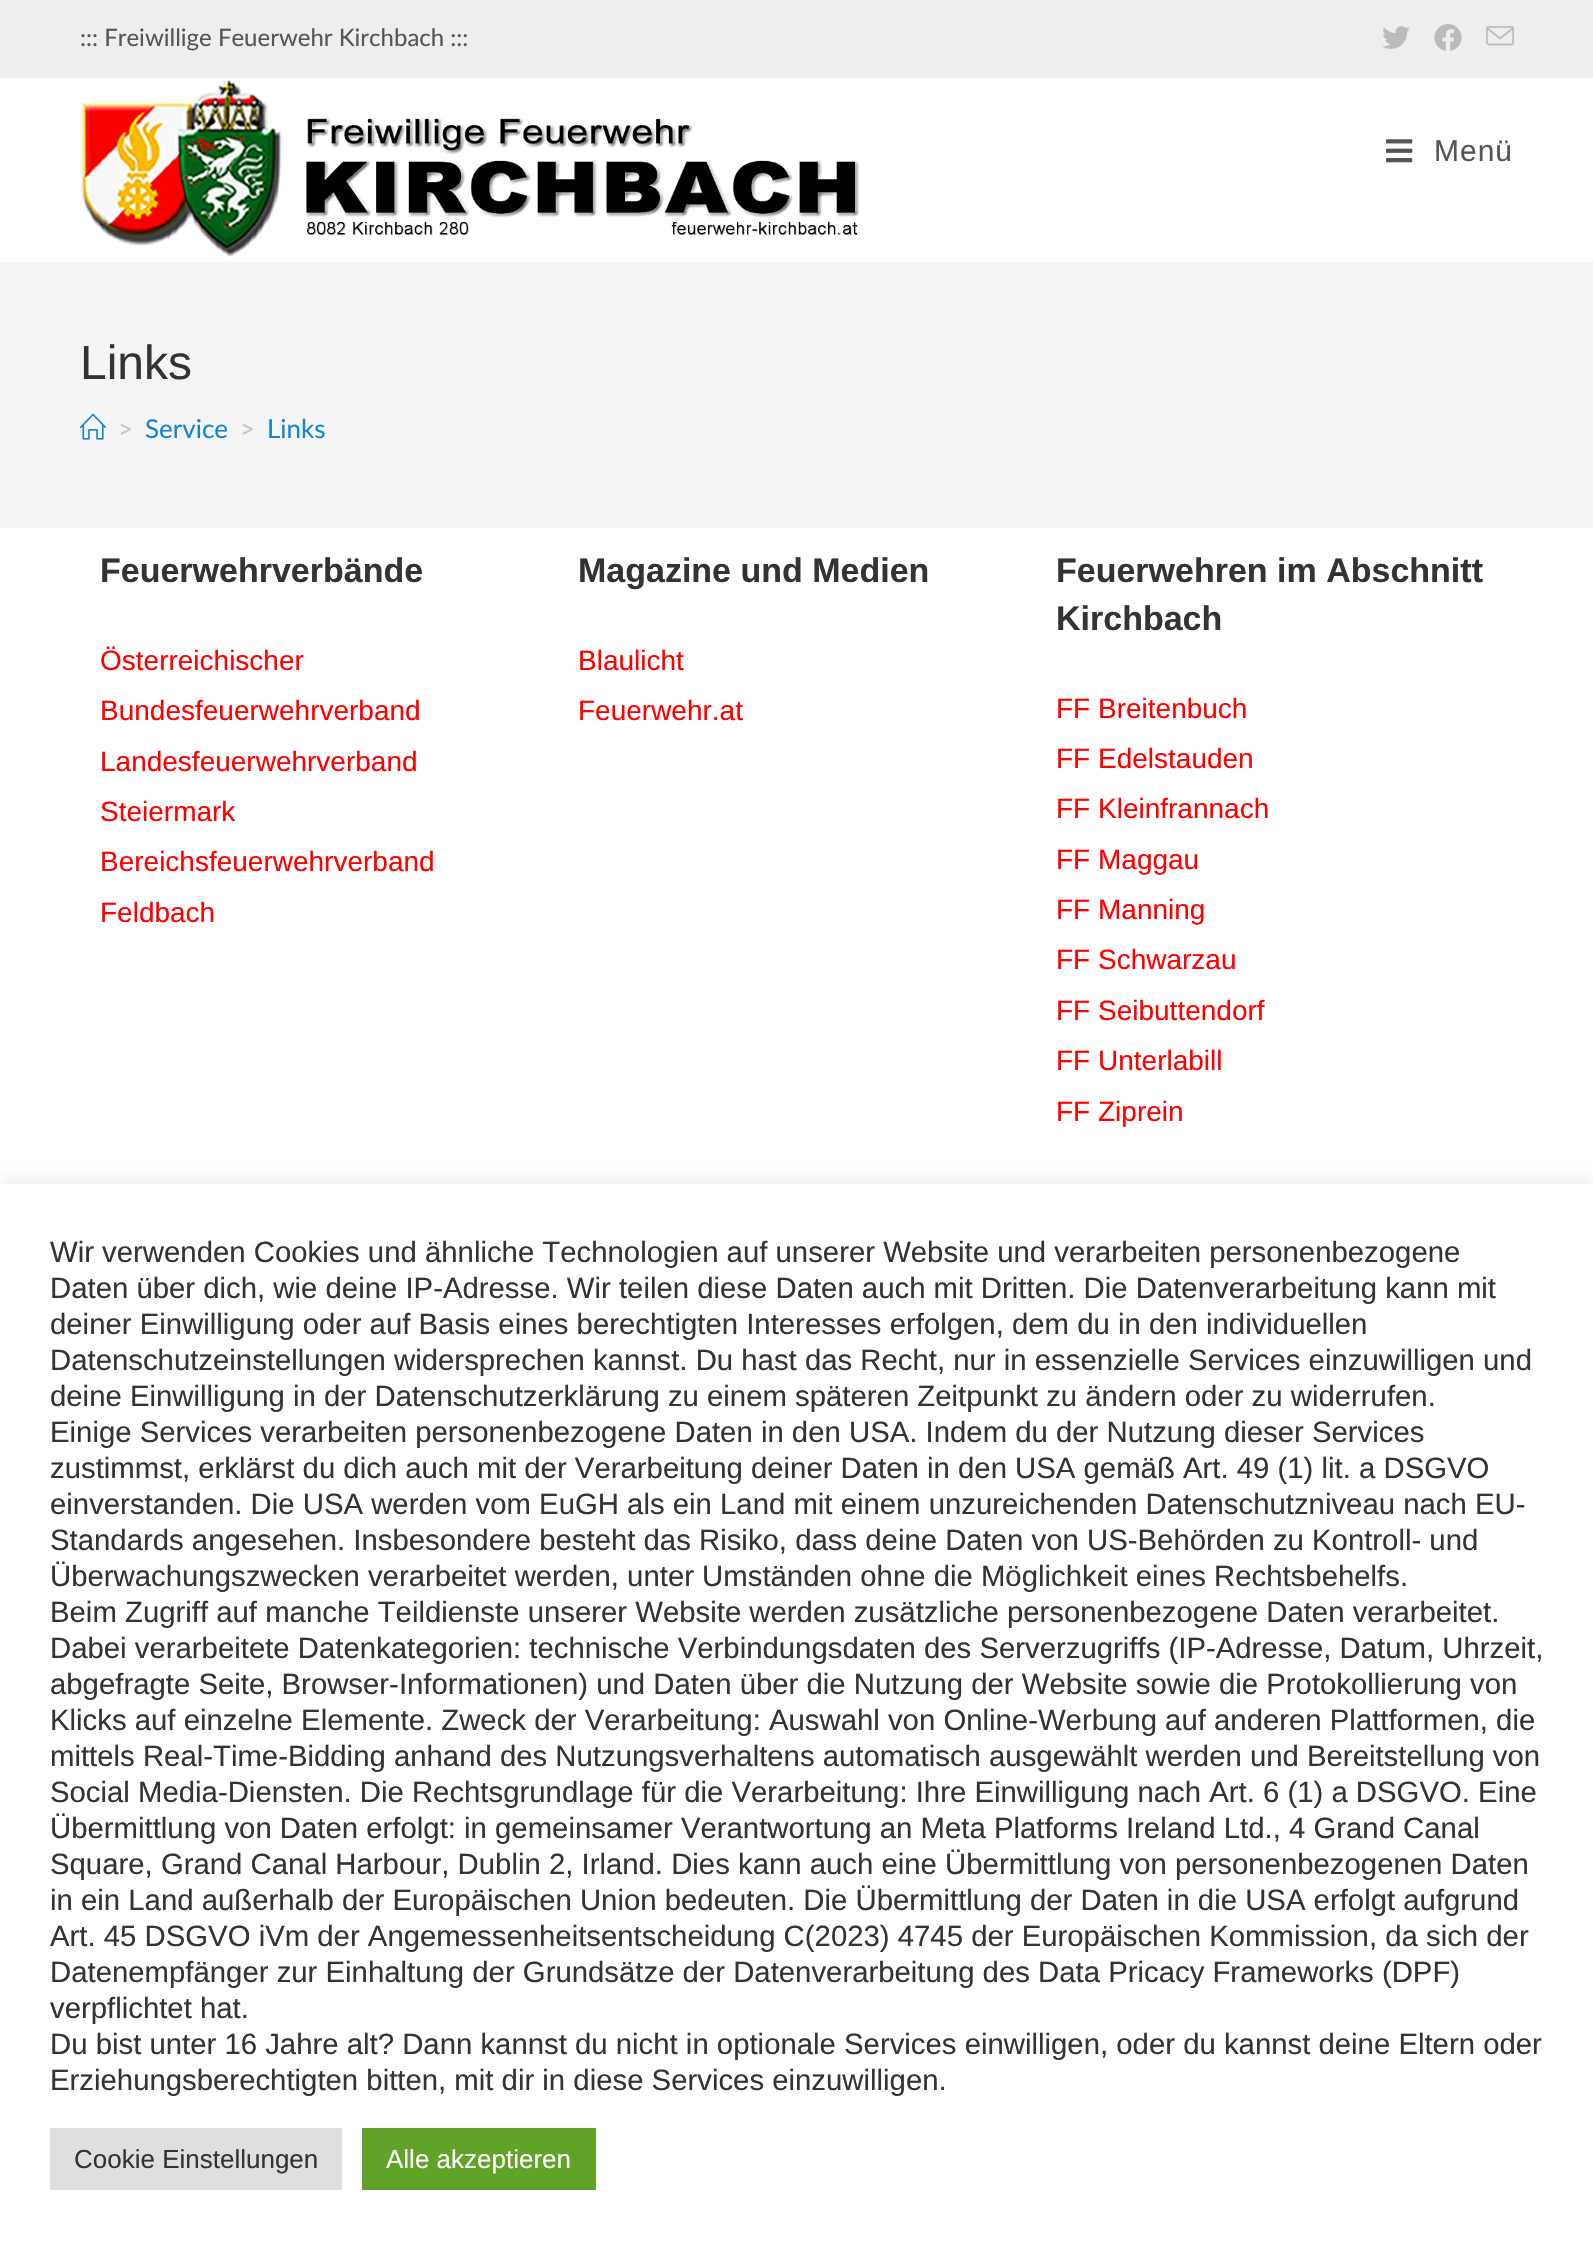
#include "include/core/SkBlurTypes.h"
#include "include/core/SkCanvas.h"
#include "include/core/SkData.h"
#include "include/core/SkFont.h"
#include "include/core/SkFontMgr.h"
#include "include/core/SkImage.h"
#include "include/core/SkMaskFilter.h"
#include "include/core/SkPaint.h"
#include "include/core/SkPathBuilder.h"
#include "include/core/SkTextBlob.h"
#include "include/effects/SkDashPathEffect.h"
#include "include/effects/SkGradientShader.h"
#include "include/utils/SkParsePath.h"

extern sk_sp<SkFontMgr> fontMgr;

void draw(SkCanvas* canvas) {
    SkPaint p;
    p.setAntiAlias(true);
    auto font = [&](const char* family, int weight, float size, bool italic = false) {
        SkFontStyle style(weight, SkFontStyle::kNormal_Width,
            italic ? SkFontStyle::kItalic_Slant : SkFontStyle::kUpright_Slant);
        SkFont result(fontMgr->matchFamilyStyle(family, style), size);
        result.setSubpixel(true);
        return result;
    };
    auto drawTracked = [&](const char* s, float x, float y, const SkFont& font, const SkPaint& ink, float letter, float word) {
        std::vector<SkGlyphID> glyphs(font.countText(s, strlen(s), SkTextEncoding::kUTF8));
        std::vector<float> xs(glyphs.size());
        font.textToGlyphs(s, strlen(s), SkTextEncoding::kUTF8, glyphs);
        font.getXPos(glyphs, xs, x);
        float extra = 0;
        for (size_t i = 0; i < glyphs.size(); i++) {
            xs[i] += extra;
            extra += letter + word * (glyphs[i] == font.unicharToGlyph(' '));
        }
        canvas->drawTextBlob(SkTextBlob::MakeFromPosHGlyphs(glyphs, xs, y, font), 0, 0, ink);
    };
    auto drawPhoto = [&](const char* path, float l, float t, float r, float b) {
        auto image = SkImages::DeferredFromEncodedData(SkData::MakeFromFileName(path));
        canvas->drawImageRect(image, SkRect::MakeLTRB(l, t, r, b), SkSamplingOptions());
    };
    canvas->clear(0xFFFFFFFF);
    p.setColor(0xFFEEEEEE);
    canvas->drawRect(SkRect::MakeLTRB(0, 0, 1593, 78), p);
    auto font1 = font("Lato", 400, 24);
    p.setColor(0xFF555555);
    canvas->drawString("::: Freiwillige Feuerwehr Kirchbach :::", 80, 46, font1, p);
    drawPhoto("media/1.png", 1382, 26, 1410, 49);
    drawPhoto("media/2.png", 1434, 24, 1462, 51);
    drawPhoto("media/3.png", 1486, 26, 1514, 46);
    drawPhoto("media/4.png", 80, 80, 860, 257);
    drawPhoto("media/5.png", 1386, 139, 1413, 163);
    auto font2 = font("Liberation Sans", 400, 30);
    drawTracked("Menü", 1434, 161, font2, p, 1, 0);
    p.setColor(0xFFF5F5F5);
    canvas->drawRect(SkRect::MakeLTRB(0, 262, 1593, 528), p);
    auto font3 = font("Liberation Sans", 400, 48);
    p.setColor(0xFF333333);
    canvas->drawString("Links", 80, 379, font3, p);
    drawPhoto("media/6.png", 80, 413, 106, 440);
    auto font4 = font("Lato", 400, 26);
    p.setColor(0xFFC6C6C6);
    canvas->drawString(">", 118, 438, font4, p);
    p.setColor(0xFF1485CC);
    canvas->drawString("Service", 145, 438, font4, p);
    p.setColor(0xFFC6C6C6);
    canvas->drawString(">", 240, 438, font4, p);
    p.setColor(0xFF1485CC);
    canvas->drawString("Links", 267, 438, font4, p);
    auto font5 = font("Liberation Sans", 700, 34);
    p.setColor(0xFF333333);
    canvas->drawString("Feuerwehrverbände", 100, 582, font5, p);
    auto font6 = font("Liberation Sans", 400, 28);
    p.setColor(0xFFFF0000);
    {
        const struct { const char* s; float x, y; } items[] = {
            {"Österreichischer", 100, 670},
            {"Bundesfeuerwehrverband", 100, 720},
            {"Landesfeuerwehrverband", 100, 771},
            {"Steiermark", 100, 821},
            {"Bereichsfeuerwehrverband", 100, 871},
            {"Feldbach", 100, 922},
        };
        for (auto [s, x, y] : items) {
            canvas->drawString(s, x, y, font6, p);
        }
    }
    p.setColor(0xFF333333);
    canvas->drawString("Magazine und Medien", 578, 582, font5, p);
    p.setColor(0xFFFF0000);
    canvas->drawString("Blaulicht", 578, 670, font6, p);
    canvas->drawString("Feuerwehr.at", 578, 720, font6, p);
    p.setColor(0xFF333333);
    canvas->drawString("Feuerwehren im Abschnitt", 1056, 582, font5, p);
    canvas->drawString("Kirchbach", 1056, 630, font5, p);
    p.setColor(0xFFFF0000);
    {
        const struct { const char* s; float x, y; } items[] = {
            {"FF Breitenbuch", 1056, 718},
            {"FF Edelstauden", 1056, 768},
            {"FF Kleinfrannach", 1056, 818},
            {"FF Maggau", 1056, 869},
            {"FF Manning", 1056, 919},
            {"FF Schwarzau", 1056, 969},
            {"FF Seibuttendorf", 1056, 1020},
            {"FF Unterlabill", 1056, 1070},
            {"FF Ziprein", 1056, 1121},
        };
        for (auto [s, x, y] : items) {
            canvas->drawString(s, x, y, font6, p);
        }
    }
    p.setColor(0x4DACABAB);
    p.setMaskFilter(SkMaskFilter::MakeBlur(kNormal_SkBlurStyle, 10));
    canvas->drawRect(SkRect::MakeLTRB(0, 1182, 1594, 2248), p);
    p.setMaskFilter(nullptr);
    p.setColor(0xFFFFFFFF);
    canvas->drawRect(SkRect::MakeLTRB(0, 1184, 1593, 2250), p);
    auto font7 = font("Liberation Sans", 400, 29.33f);
    p.setColor(0xFF333333);
    {
        const struct { const char* s; float x, y; } items[] = {
            {"Wir verwenden Cookies und ähnliche Technologien auf unserer Website und verarbeiten personenbezogene", 50, 1262},
            {"Daten über dich, wie deine IP-Adresse. Wir teilen diese Daten auch mit Dritten. Die Datenverarbeitung kann mit", 50, 1298},
            {"deiner Einwilligung oder auf Basis eines berechtigten Interesses erfolgen, dem du in den individuellen", 50, 1334},
            {"Datenschutzeinstellungen widersprechen kannst. Du hast das Recht, nur in essenzielle Services einzuwilligen und", 50, 1370},
            {"deine Einwilligung in der Datenschutzerklärung zu einem späteren Zeitpunkt zu ändern oder zu widerrufen.", 50, 1406},
            {"Einige Services verarbeiten personenbezogene Daten in den USA. Indem du der Nutzung dieser Services", 50, 1442},
            {"zustimmst, erklärst du dich auch mit der Verarbeitung deiner Daten in den USA gemäß Art. 49 (1) lit. a DSGVO", 50, 1478},
            {"einverstanden. Die USA werden vom EuGH als ein Land mit einem unzureichenden Datenschutzniveau nach EU-", 50, 1514},
            {"Standards angesehen. Insbesondere besteht das Risiko, dass deine Daten von US-Behörden zu Kontroll- und", 50, 1550},
            {"Überwachungszwecken verarbeitet werden, unter Umständen ohne die Möglichkeit eines Rechtsbehelfs.", 50, 1586},
            {"Beim Zugriff auf manche Teildienste unserer Website werden zusätzliche personenbezogene Daten verarbeitet.", 50, 1622},
            {"Dabei verarbeitete Datenkategorien: technische Verbindungsdaten des Serverzugriffs (IP-Adresse, Datum, Uhrzeit,", 50, 1658},
            {"abgefragte Seite, Browser-Informationen) und Daten über die Nutzung der Website sowie die Protokollierung von", 50, 1694},
            {"Klicks auf einzelne Elemente. Zweck der Verarbeitung: Auswahl von Online-Werbung auf anderen Plattformen, die", 50, 1730},
            {"mittels Real-Time-Bidding anhand des Nutzungsverhaltens automatisch ausgewählt werden und Bereitstellung von", 50, 1766},
            {"Social Media-Diensten. Die Rechtsgrundlage für die Verarbeitung: Ihre Einwilligung nach Art. 6 (1) a DSGVO. Eine", 50, 1802},
            {"Übermittlung von Daten erfolgt: in gemeinsamer Verantwortung an Meta Platforms Ireland Ltd., 4 Grand Canal", 50, 1838},
            {"Square, Grand Canal Harbour, Dublin 2, Irland. Dies kann auch eine Übermittlung von personenbezogenen Daten", 50, 1874},
            {"in ein Land außerhalb der Europäischen Union bedeuten. Die Übermittlung der Daten in die USA erfolgt aufgrund", 50, 1910},
            {"Art. 45 DSGVO iVm der Angemessenheitsentscheidung C(2023) 4745 der Europäischen Kommission, da sich der", 50, 1946},
            {"Datenempfänger zur Einhaltung der Grundsätze der Datenverarbeitung des Data Pricacy Frameworks (DPF)", 50, 1982},
            {"verpflichtet hat.", 50, 2018},
            {"Du bist unter 16 Jahre alt? Dann kannst du nicht in optionale Services einwilligen, oder du kannst deine Eltern oder", 50, 2054},
            {"Erziehungsberechtigten bitten, mit dir in diese Services einzuwilligen.", 50, 2090},
        };
        for (auto [s, x, y] : items) {
            canvas->drawString(s, x, y, font7, p);
        }
    }
    p.setColor(0xFFDEDFE0);
    canvas->drawRect(SkRect::MakeLTRB(50, 2128, 342, 2190), p);
    auto font8 = font("Liberation Sans", 400, 26);
    p.setColor(0xFF333333);
    canvas->drawString("Cookie Einstellungen", 74, 2168, font8, p);
    p.setColor(0xFF61A229);
    canvas->drawRect(SkRect::MakeLTRB(362, 2128, 596, 2190), p);
    p.setColor(0xFFFFFFFF);
    canvas->drawString("Alle akzeptieren", 386, 2168, font8, p);
}
